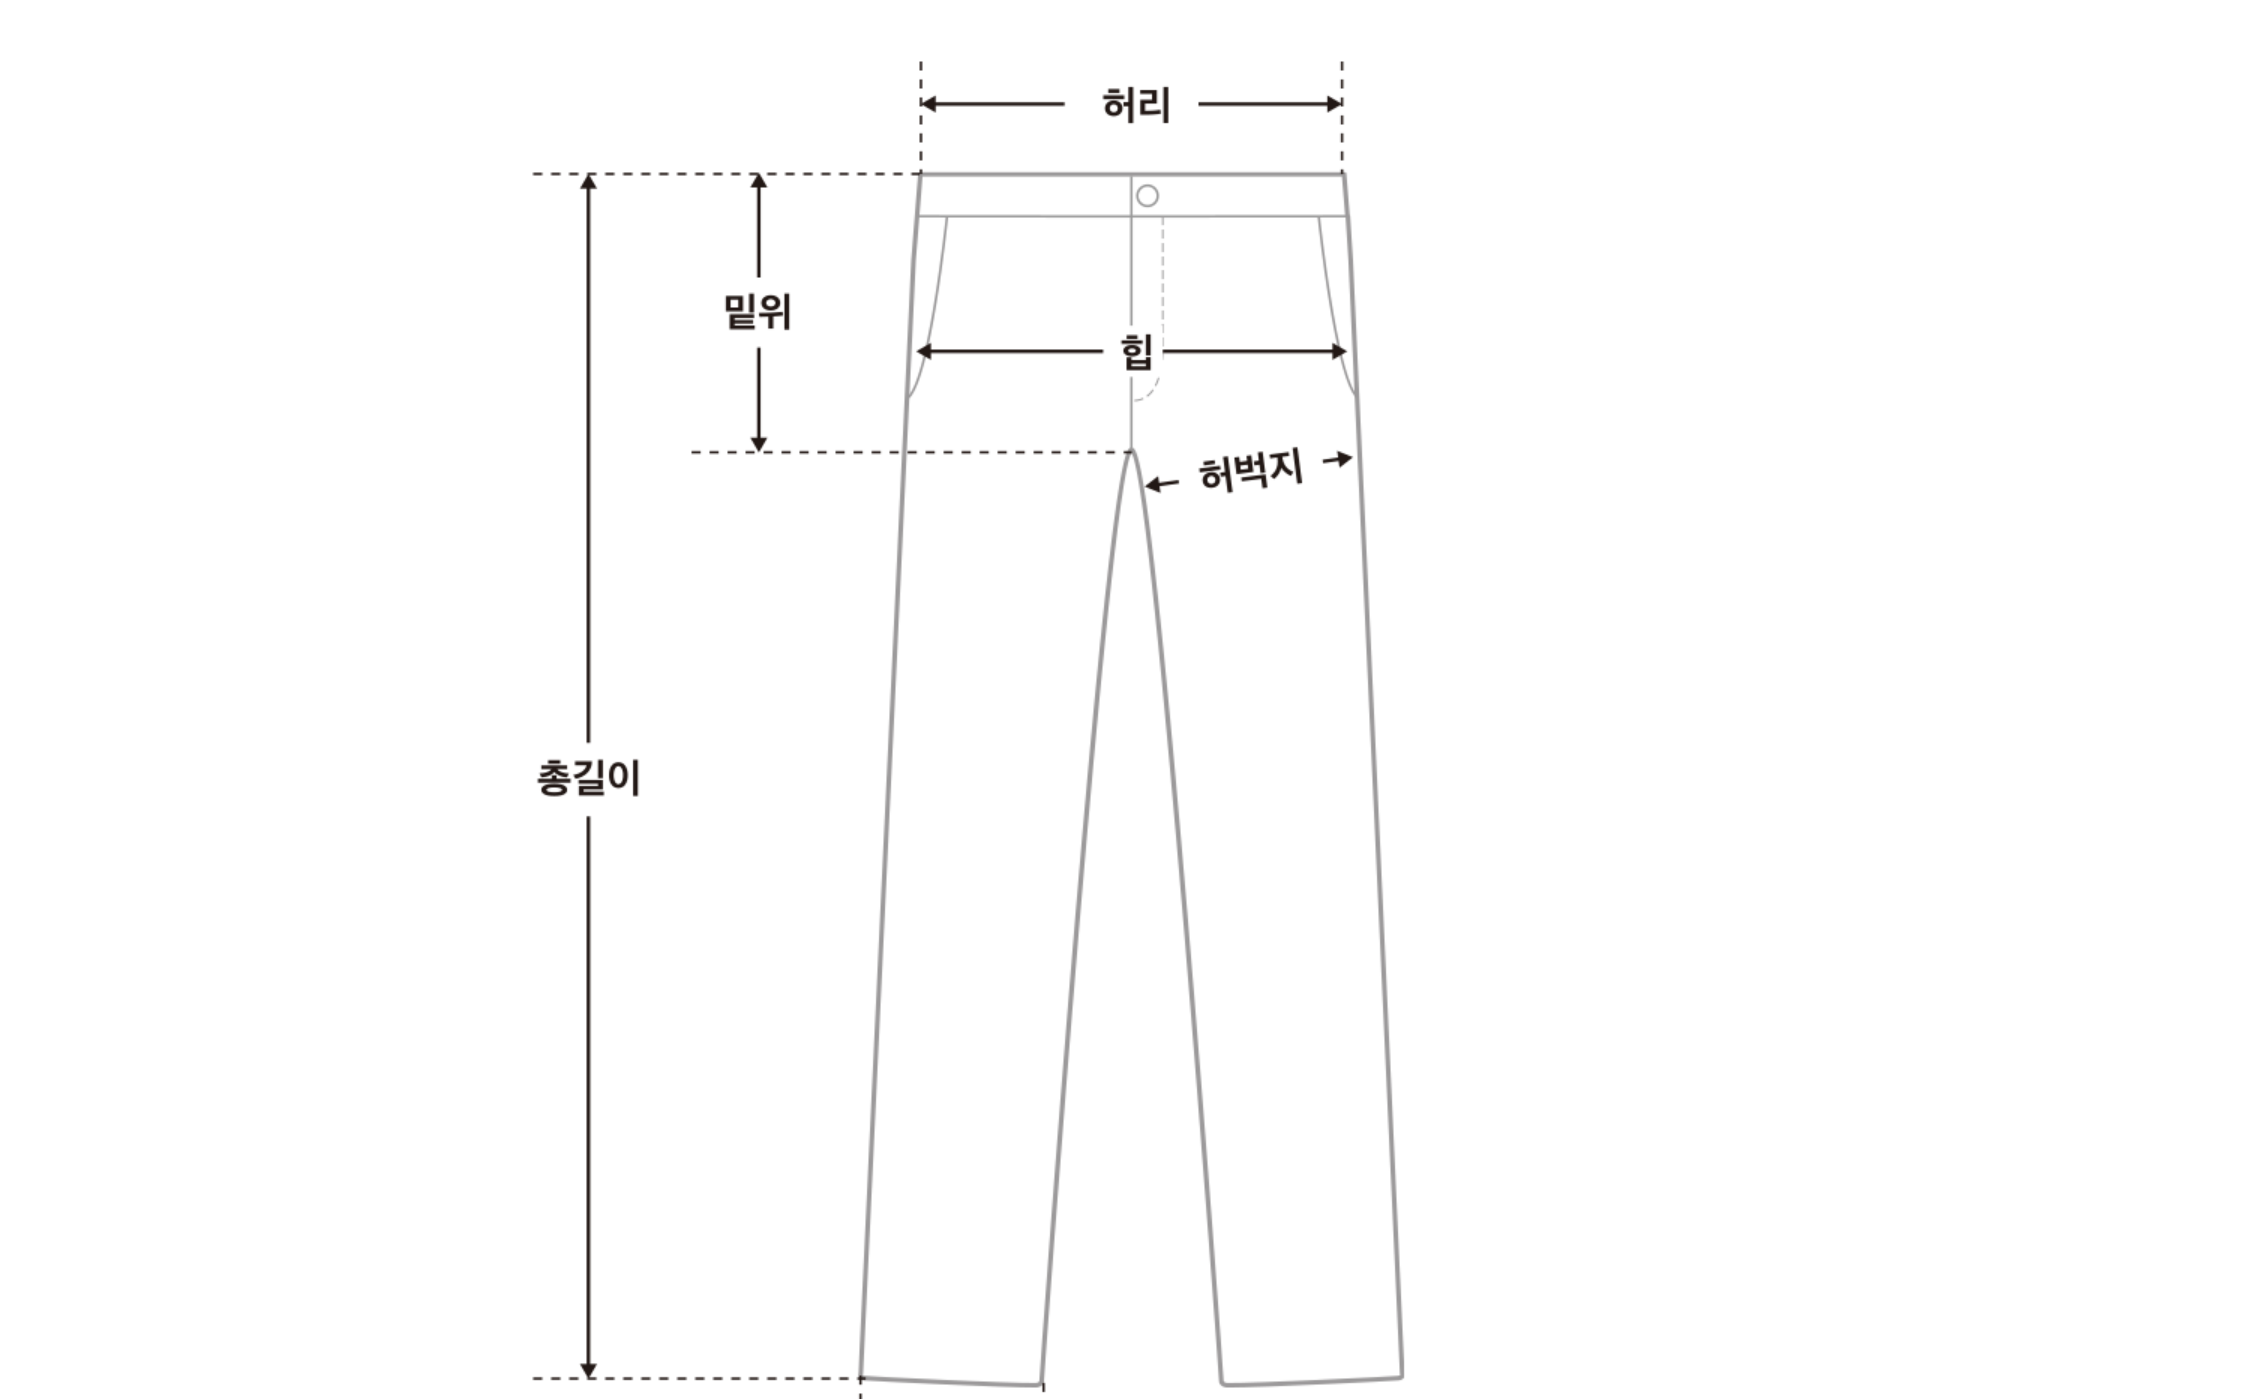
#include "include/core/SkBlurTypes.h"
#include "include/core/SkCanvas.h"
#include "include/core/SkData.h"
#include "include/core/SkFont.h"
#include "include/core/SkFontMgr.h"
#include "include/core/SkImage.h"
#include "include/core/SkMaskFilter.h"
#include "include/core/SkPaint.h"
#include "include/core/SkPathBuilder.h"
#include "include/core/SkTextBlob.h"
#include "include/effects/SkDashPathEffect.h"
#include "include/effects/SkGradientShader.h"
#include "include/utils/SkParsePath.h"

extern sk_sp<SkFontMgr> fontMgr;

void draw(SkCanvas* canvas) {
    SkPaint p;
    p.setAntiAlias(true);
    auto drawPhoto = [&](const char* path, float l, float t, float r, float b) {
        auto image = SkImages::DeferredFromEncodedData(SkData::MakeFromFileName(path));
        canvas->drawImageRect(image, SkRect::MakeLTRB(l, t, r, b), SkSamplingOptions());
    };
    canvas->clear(0xFFFFFFFF);
    drawPhoto("media/1.png", 532, 61, 1405, 1399);
}
